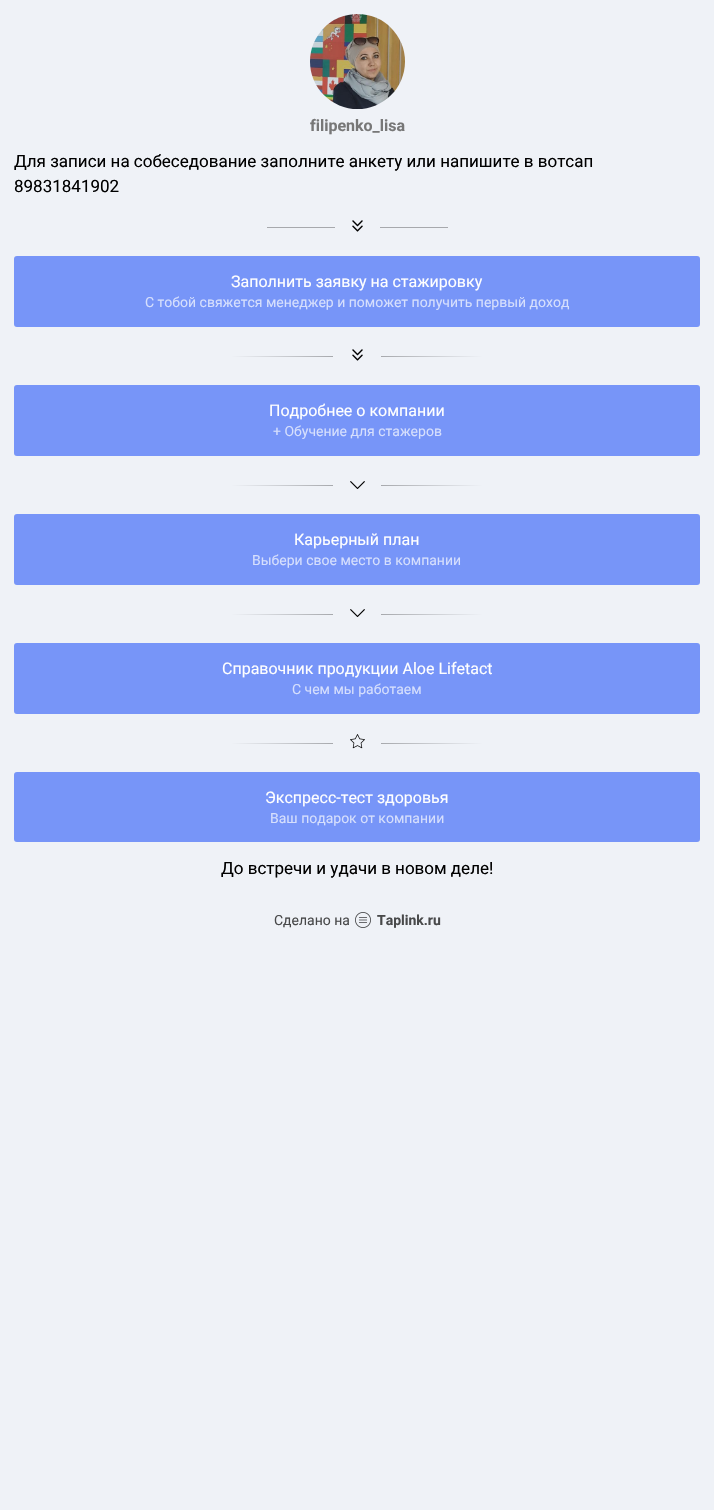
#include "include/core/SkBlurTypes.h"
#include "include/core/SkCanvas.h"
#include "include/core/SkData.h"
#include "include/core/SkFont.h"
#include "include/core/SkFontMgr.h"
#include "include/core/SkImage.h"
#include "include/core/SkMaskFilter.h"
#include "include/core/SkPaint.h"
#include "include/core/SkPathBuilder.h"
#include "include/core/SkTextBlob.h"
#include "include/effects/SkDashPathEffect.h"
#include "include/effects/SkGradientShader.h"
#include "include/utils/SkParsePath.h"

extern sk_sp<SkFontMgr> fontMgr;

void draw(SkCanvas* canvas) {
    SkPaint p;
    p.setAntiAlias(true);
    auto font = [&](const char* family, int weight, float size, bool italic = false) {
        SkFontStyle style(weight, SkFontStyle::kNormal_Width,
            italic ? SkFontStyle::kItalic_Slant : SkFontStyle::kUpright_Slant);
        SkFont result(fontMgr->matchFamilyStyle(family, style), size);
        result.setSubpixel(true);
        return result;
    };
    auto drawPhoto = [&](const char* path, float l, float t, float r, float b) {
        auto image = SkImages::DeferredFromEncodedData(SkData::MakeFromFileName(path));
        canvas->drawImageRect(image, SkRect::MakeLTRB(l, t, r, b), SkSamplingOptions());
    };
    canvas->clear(0xFFEFF2F7);
    drawPhoto("media/1.png", 310, 14, 405, 109);
    auto font1 = font("Roboto", 700, 16);
    p.setColor(0xFF777777);
    canvas->drawString("filipenko_lisa", 310, 131, font1, p);
    auto font2 = font("Roboto", 400, 17);
    p.setColor(0xFF000000);
    canvas->drawString("Для записи на собеседование заполните анкету или напишите в вотсап", 14, 167, font2, p);
    canvas->drawString("89831841902", 14, 192, font2, p);
    p.setColor(0xFFA7A9AD);
    canvas->drawRect(SkRect::MakeLTRB(267, 227, 335, 228), p);
    drawPhoto("media/2.png", 352, 220, 363, 232);
    canvas->drawRect(SkRect::MakeLTRB(380, 227, 448, 228), p);
    p.setColor(0xFF7795F8);
    canvas->drawRoundRect(SkRect::MakeLTRB(15, 257, 699, 326), 2, 2, p);
    p.setStyle(SkPaint::kStroke_Style);
    p.setStrokeWidth(2);
    canvas->drawRoundRect(SkRect::MakeLTRB(15, 257, 699, 326), 2, 2, p);
    auto font3 = font("Roboto", 400, 16);
    p.setStyle(SkPaint::kFill_Style);
    p.setColor(0xFFFFFFFF);
    canvas->drawString("Заполнить заявку на стажировку", 231, 287, font3, p);
    auto font4 = font("Roboto", 400, 14);
    p.setColor(0xFFD6DFFD);
    canvas->drawString("С тобой свяжется менеджер и поможет получить первый доход", 145, 307, font4, p);
    {
        const SkColor colors[] = {0xFFA7A9AD, 0xFFEFF2F7};
        const float stops[] = {0, 1};
        const SkPoint ends[] = {{333, 357}, {231, 357}};
        p.setShader(SkGradientShader::MakeLinear(ends, colors, stops, 2, SkTileMode::kClamp));
        p.setAlpha(255);
    }
    canvas->drawRect(SkRect::MakeLTRB(231, 356, 333, 357), p);
    drawPhoto("media/2.png", 352, 349, 363, 361);
    {
        const SkColor colors[] = {0xFFA7A9AD, 0xFFEFF2F7};
        const float stops[] = {0, 1};
        const SkPoint ends[] = {{381, 357}, {483, 357}};
        p.setShader(SkGradientShader::MakeLinear(ends, colors, stops, 2, SkTileMode::kClamp));
        p.setAlpha(255);
    }
    canvas->drawRect(SkRect::MakeLTRB(381, 356, 483, 357), p);
    p.setShader(nullptr);
    p.setColor(0xFF7795F8);
    canvas->drawRoundRect(SkRect::MakeLTRB(15, 386, 699, 455), 2, 2, p);
    p.setStyle(SkPaint::kStroke_Style);
    canvas->drawRoundRect(SkRect::MakeLTRB(15, 386, 699, 455), 2, 2, p);
    p.setStyle(SkPaint::kFill_Style);
    p.setColor(0xFFFFFFFF);
    canvas->drawString("Подробнее о компании", 269, 416, font3, p);
    p.setColor(0xFFD6DFFD);
    canvas->drawString("+ Обучение для стажеров", 273, 436, font4, p);
    {
        const SkColor colors[] = {0xFFA7A9AD, 0xFFEFF2F7};
        const float stops[] = {0, 1};
        const SkPoint ends[] = {{333, 486}, {231, 486}};
        p.setShader(SkGradientShader::MakeLinear(ends, colors, stops, 2, SkTileMode::kClamp));
        p.setAlpha(255);
    }
    canvas->drawRect(SkRect::MakeLTRB(231, 485, 333, 486), p);
    drawPhoto("media/3.png", 350, 481, 365, 489);
    {
        const SkColor colors[] = {0xFFA7A9AD, 0xFFEFF2F7};
        const float stops[] = {0, 1};
        const SkPoint ends[] = {{381, 486}, {483, 486}};
        p.setShader(SkGradientShader::MakeLinear(ends, colors, stops, 2, SkTileMode::kClamp));
        p.setAlpha(255);
    }
    canvas->drawRect(SkRect::MakeLTRB(381, 485, 483, 486), p);
    p.setShader(nullptr);
    p.setColor(0xFF7795F8);
    canvas->drawRoundRect(SkRect::MakeLTRB(15, 515, 699, 584), 2, 2, p);
    p.setStyle(SkPaint::kStroke_Style);
    canvas->drawRoundRect(SkRect::MakeLTRB(15, 515, 699, 584), 2, 2, p);
    p.setStyle(SkPaint::kFill_Style);
    p.setColor(0xFFFFFFFF);
    canvas->drawString("Карьерный план", 294, 545, font3, p);
    p.setColor(0xFFD6DFFD);
    canvas->drawString("Выбери свое место в компании", 252, 565, font4, p);
    {
        const SkColor colors[] = {0xFFA7A9AD, 0xFFEFF2F7};
        const float stops[] = {0, 1};
        const SkPoint ends[] = {{333, 615}, {231, 615}};
        p.setShader(SkGradientShader::MakeLinear(ends, colors, stops, 2, SkTileMode::kClamp));
        p.setAlpha(255);
    }
    canvas->drawRect(SkRect::MakeLTRB(231, 614, 333, 615), p);
    drawPhoto("media/3.png", 350, 609, 365, 617);
    {
        const SkColor colors[] = {0xFFA7A9AD, 0xFFEFF2F7};
        const float stops[] = {0, 1};
        const SkPoint ends[] = {{381, 615}, {483, 615}};
        p.setShader(SkGradientShader::MakeLinear(ends, colors, stops, 2, SkTileMode::kClamp));
        p.setAlpha(255);
    }
    canvas->drawRect(SkRect::MakeLTRB(381, 614, 483, 615), p);
    p.setShader(nullptr);
    p.setColor(0xFF7795F8);
    canvas->drawRoundRect(SkRect::MakeLTRB(15, 644, 699, 713), 2, 2, p);
    p.setStyle(SkPaint::kStroke_Style);
    canvas->drawRoundRect(SkRect::MakeLTRB(15, 644, 699, 713), 2, 2, p);
    p.setStyle(SkPaint::kFill_Style);
    p.setColor(0xFFFFFFFF);
    canvas->drawString("Справочник продукции Aloe Lifetact", 222, 674, font3, p);
    p.setColor(0xFFD6DFFD);
    canvas->drawString("С чем мы работаем", 292, 694, font4, p);
    {
        const SkColor colors[] = {0xFFA7A9AD, 0xFFEFF2F7};
        const float stops[] = {0, 1};
        const SkPoint ends[] = {{333, 744}, {231, 744}};
        p.setShader(SkGradientShader::MakeLinear(ends, colors, stops, 2, SkTileMode::kClamp));
        p.setAlpha(255);
    }
    canvas->drawRect(SkRect::MakeLTRB(231, 743, 333, 744), p);
    drawPhoto("media/4.png", 350, 734, 365, 749);
    {
        const SkColor colors[] = {0xFFA7A9AD, 0xFFEFF2F7};
        const float stops[] = {0, 1};
        const SkPoint ends[] = {{381, 744}, {483, 744}};
        p.setShader(SkGradientShader::MakeLinear(ends, colors, stops, 2, SkTileMode::kClamp));
        p.setAlpha(255);
    }
    canvas->drawRect(SkRect::MakeLTRB(381, 743, 483, 744), p);
    p.setShader(nullptr);
    p.setColor(0xFF7795F8);
    canvas->drawRoundRect(SkRect::MakeLTRB(15, 773, 699, 841), 2, 2, p);
    p.setStyle(SkPaint::kStroke_Style);
    canvas->drawRoundRect(SkRect::MakeLTRB(15, 773, 699, 841), 2, 2, p);
    p.setStyle(SkPaint::kFill_Style);
    p.setColor(0xFFFFFFFF);
    canvas->drawString("Экспресс-тест здоровья", 265, 803, font3, p);
    p.setColor(0xFFD6DFFD);
    canvas->drawString("Ваш подарок от компании", 270, 823, font4, p);
    p.setColor(0xFF000000);
    canvas->drawString("До встречи и удачи в новом деле!", 221, 874, font2, p);
    p.setColor(0xFF48494A);
    canvas->drawString("Сделано на", 274, 925, font4, p);
    drawPhoto("media/5.png", 355, 912, 371, 928);
    auto font5 = font("Roboto", 700, 14);
    canvas->drawString("Taplink.ru", 377, 925, font5, p);
}
